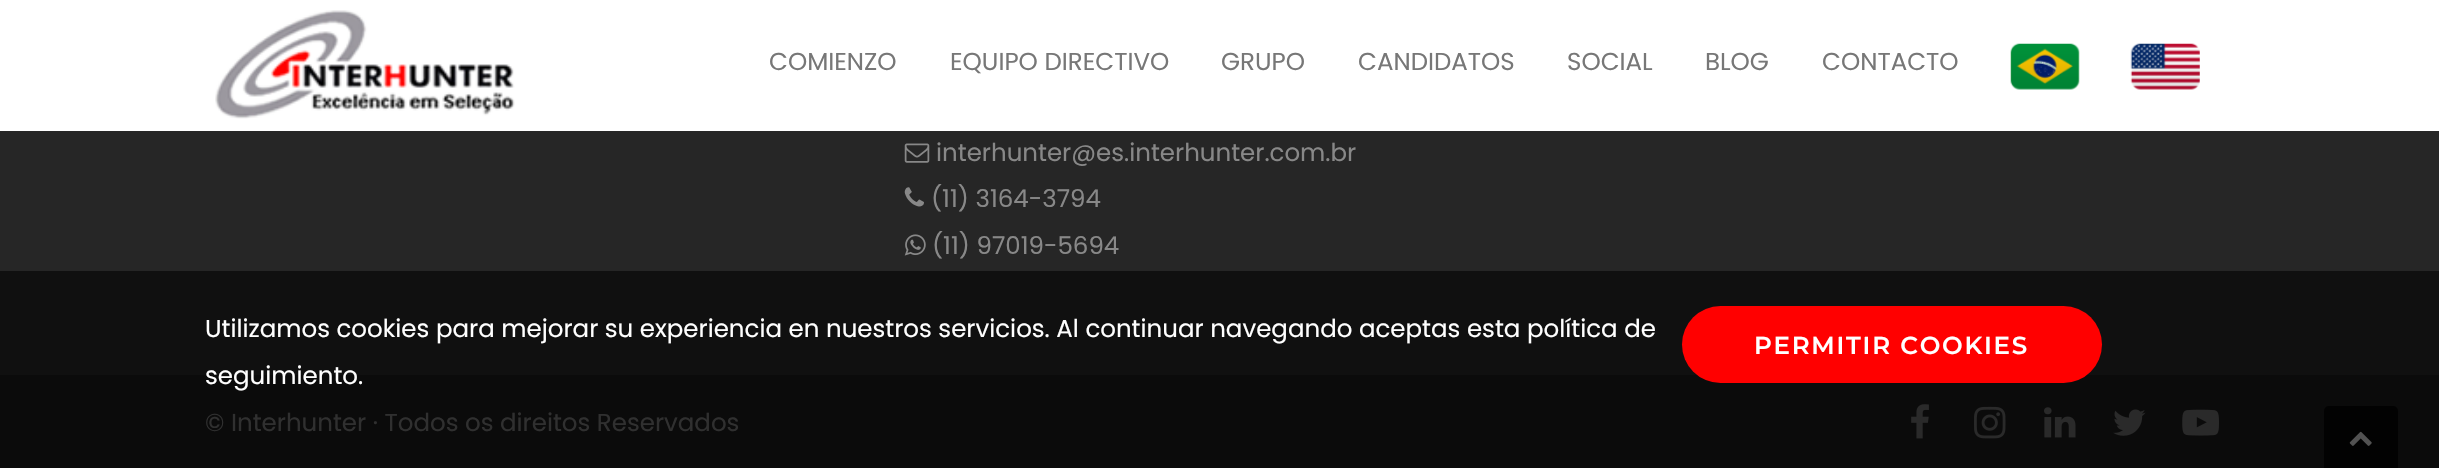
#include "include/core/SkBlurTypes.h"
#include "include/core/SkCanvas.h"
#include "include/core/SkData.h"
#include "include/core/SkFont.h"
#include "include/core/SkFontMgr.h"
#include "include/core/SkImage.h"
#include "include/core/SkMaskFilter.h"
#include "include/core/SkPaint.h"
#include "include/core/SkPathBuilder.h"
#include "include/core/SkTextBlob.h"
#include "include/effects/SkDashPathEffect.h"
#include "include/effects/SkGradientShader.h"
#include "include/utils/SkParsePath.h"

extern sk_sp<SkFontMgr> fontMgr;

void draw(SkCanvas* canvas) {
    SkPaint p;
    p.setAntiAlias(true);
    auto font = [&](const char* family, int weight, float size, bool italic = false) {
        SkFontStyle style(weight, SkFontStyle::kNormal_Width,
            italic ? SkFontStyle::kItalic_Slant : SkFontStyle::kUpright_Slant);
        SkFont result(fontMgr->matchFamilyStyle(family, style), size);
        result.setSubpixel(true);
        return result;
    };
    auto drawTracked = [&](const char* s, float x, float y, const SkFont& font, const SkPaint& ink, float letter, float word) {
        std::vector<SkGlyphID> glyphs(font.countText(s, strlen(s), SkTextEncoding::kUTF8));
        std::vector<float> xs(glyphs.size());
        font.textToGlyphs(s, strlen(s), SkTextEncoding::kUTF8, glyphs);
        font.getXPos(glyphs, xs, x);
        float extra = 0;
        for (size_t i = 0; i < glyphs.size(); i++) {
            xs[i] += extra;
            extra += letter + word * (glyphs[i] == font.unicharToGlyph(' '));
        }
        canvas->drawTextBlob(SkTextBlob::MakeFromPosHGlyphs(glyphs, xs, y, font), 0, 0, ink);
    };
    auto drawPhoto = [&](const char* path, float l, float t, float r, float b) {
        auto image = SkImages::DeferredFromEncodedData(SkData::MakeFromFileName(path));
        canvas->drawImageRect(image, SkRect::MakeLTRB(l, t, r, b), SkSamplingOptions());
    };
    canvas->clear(0xFF262626);
    p.setColor(0xFFFFFFFF);
    canvas->drawRect(SkRect::MakeLTRB(0, 0, 2439, 131), p);
    drawPhoto("media/1.png", 215, 10, 515, 119);
    auto font1 = font("Poppins", 400, 24.5f);
    p.setColor(0xFF777777);
    {
        const struct { const char* s; float x, y; } items[] = {
            {"COMIENZO", 769, 70},
            {"EQUIPO DIRECTIVO", 950, 70},
            {"GRUPO", 1221, 70},
            {"CANDIDATOS", 1358, 70},
            {"SOCIAL", 1567, 70},
            {"BLOG", 1705, 70},
            {"CONTACTO", 1822, 70},
        };
        for (auto [s, x, y] : items) {
            canvas->drawString(s, x, y, font1, p);
        }
    }
    drawPhoto("media/2.png", 2010, 43, 2080, 90);
    drawPhoto("media/3.png", 2130, 43, 2200, 90);
    drawPhoto("media/4.png", 904, 143, 930, 163);
    p.setColor(0xFF888888);
    canvas->drawString("interhunter@es.interhunter.com.br", 936, 161, font1, p);
    drawPhoto("media/5.png", 904, 187, 924, 207);
    canvas->drawString("(11) 3164-3794", 931, 207, font1, p);
    drawPhoto("media/6.png", 904, 234, 926, 256);
    canvas->drawString("(11) 97019-5694", 932, 254, font1, p);
    p.setColor(0xFF1B1B1B);
    canvas->drawRect(SkRect::MakeLTRB(0, 375, 2439, 468), p);
    p.setColor(0xFF777777);
    canvas->drawString("© Interhunter · Todos os direitos Reservados", 205, 431, font1, p);
    drawPhoto("media/7.png", 1911, 404, 1929, 439);
    drawPhoto("media/8.png", 1974, 406, 2006, 439);
    drawPhoto("media/9.png", 2044, 407, 2076, 438);
    drawPhoto("media/10.png", 2113, 409, 2146, 436);
    drawPhoto("media/11.png", 2182, 409, 2219, 436);
    p.setColor(0xFF050505);
    canvas->drawPath(SkPathBuilder().moveTo(2329, 406).lineTo(2393, 406).cubicTo(2396, 406, 2398, 408, 2398, 411).lineTo(2398, 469).lineTo(2324, 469).lineTo(2324, 411).cubicTo(2324, 408, 2326, 406, 2329, 406).close().detach(), p);
    drawPhoto("media/12.png", 2349, 431, 2372, 446);
    p.setColor(0x99000000);
    canvas->drawRect(SkRect::MakeLTRB(0, 271, 2439, 468), p);
    p.setColor(0xFFFFFFFF);
    canvas->drawString("Utilizamos cookies para mejorar su experiencia en nuestros servicios. Al continuar navegando aceptas esta política de", 205, 337, font1, p);
    canvas->drawString("seguimiento.", 205, 384, font1, p);
    p.setColor(0xFFFF0000);
    canvas->drawRoundRect(SkRect::MakeLTRB(1682, 306, 2102, 383), 38.5f, 38.5f, p);
    auto font2 = font("Montserrat", 600, 24.5f);
    p.setColor(0xFFFFFFFF);
    drawTracked("PERMITIR COOKIES", 1754, 354, font2, p, 1.75f, 0);
}
